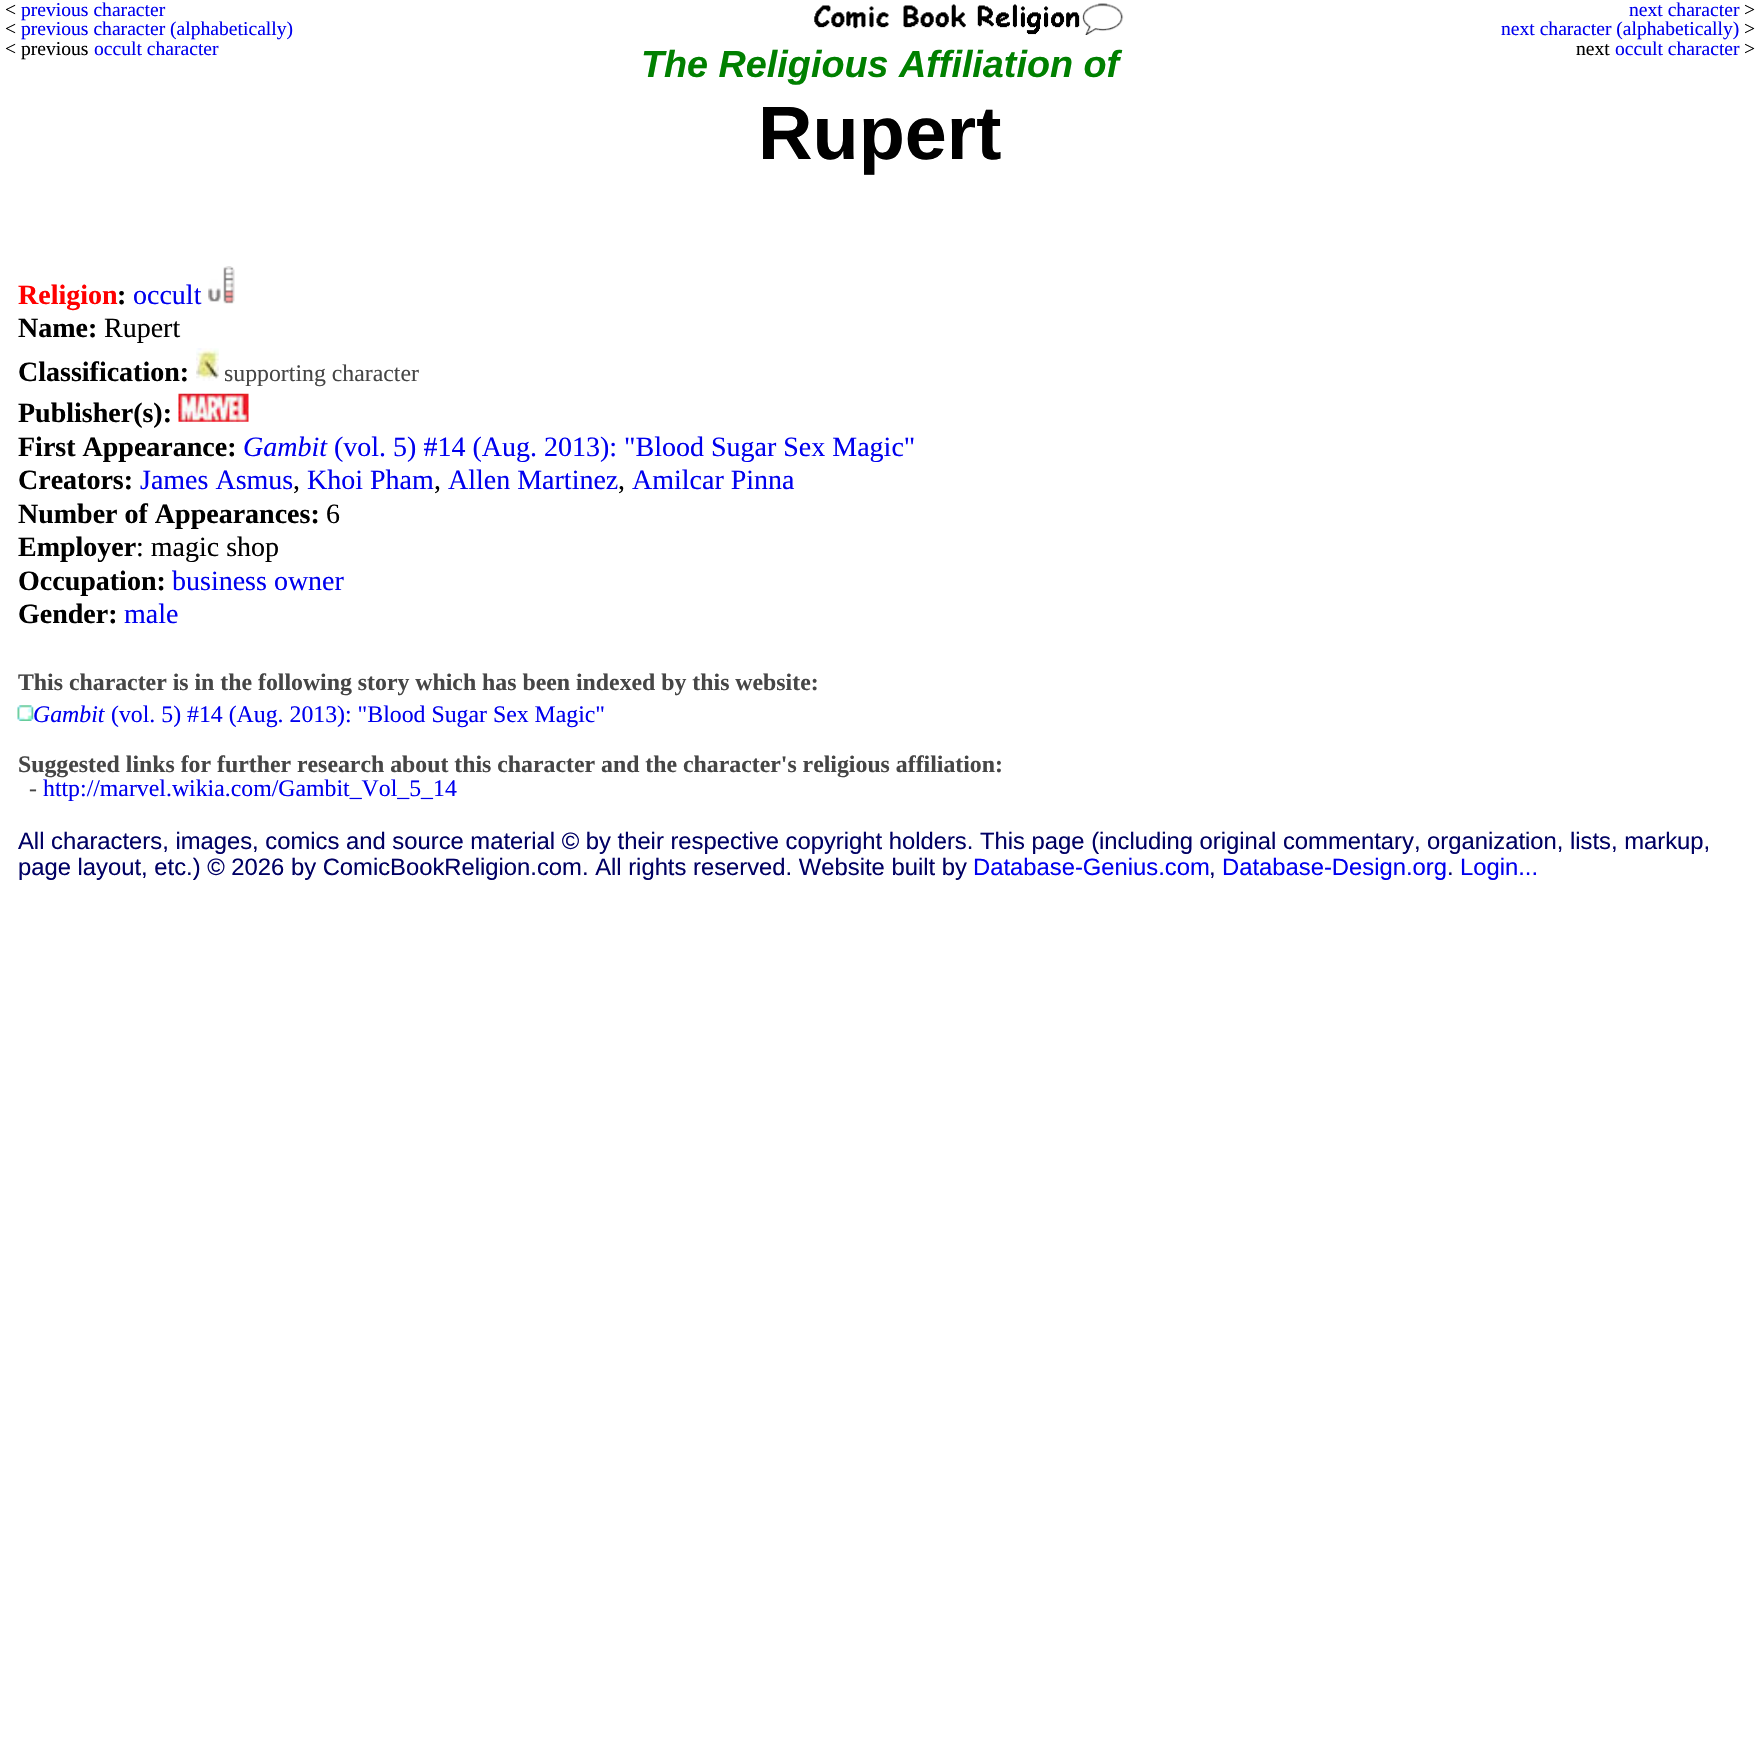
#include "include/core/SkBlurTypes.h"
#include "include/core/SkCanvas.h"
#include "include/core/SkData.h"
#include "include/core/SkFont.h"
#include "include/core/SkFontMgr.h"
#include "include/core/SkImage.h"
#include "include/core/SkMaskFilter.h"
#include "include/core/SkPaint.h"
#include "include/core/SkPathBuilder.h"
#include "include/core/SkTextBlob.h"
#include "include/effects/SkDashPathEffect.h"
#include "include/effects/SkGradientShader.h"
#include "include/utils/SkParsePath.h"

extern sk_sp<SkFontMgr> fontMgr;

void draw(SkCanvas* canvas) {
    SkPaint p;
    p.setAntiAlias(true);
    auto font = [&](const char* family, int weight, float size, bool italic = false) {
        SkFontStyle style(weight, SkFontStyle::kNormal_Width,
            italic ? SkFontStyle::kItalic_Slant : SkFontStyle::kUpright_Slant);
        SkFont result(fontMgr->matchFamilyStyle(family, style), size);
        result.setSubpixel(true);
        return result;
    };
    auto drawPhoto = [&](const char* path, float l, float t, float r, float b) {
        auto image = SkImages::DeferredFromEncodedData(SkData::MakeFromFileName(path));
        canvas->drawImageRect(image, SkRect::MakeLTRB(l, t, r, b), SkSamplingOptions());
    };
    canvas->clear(0xFFFFFFFF);
    auto font1 = font("Liberation Serif", 400, 19.6f);
    p.setColor(0xFF000000);
    canvas->drawString("<", 5, 16, font1, p);
    p.setColor(0xFF0000EE);
    canvas->drawString("previous character", 21, 16, font1, p);
    p.setColor(0xFF000000);
    canvas->drawString("<", 5, 35, font1, p);
    p.setColor(0xFF0000EE);
    canvas->drawString("previous character (alphabetically)", 21, 35, font1, p);
    p.setColor(0xFF000000);
    canvas->drawString("< previous", 5, 55, font1, p);
    p.setColor(0xFF0000EE);
    canvas->drawString("occult character", 94, 55, font1, p);
    drawPhoto("media/1.png", 814, 3, 1124, 35);
    canvas->drawString("next character", 1629, 16, font1, p);
    p.setColor(0xFF000000);
    canvas->drawString(">", 1744, 16, font1, p);
    p.setColor(0xFF0000EE);
    canvas->drawString("next character (alphabetically)", 1501, 35, font1, p);
    p.setColor(0xFF000000);
    canvas->drawString(">", 1744, 35, font1, p);
    canvas->drawString("next", 1576, 55, font1, p);
    p.setColor(0xFF0000EE);
    canvas->drawString("occult character", 1615, 55, font1, p);
    p.setColor(0xFF000000);
    canvas->drawString(">", 1744, 55, font1, p);
    auto font2 = font("Liberation Sans", 700, 37.75f, true);
    p.setColor(0xFF008000);
    canvas->drawString("The Religious Affiliation of", 641, 77, font2, p);
    auto font3 = font("Liberation Sans", 700, 75.5f);
    p.setColor(0xFF000000);
    canvas->drawString("Rupert", 758, 159, font3, p);
    auto font4 = font("Liberation Serif", 700, 28);
    p.setColor(0xFFFF0000);
    canvas->drawString("Religion", 18, 304, font4, p);
    p.setColor(0xFF000000);
    canvas->drawString(":", 117, 304, font4, p);
    auto font5 = font("Liberation Serif", 400, 28);
    p.setColor(0xFF0000EE);
    canvas->drawString("occult", 133, 304, font5, p);
    drawPhoto("media/2.png", 208, 266, 235, 304);
    p.setColor(0xFF000000);
    canvas->drawString("Name:", 18, 337, font4, p);
    canvas->drawString("Rupert", 104, 337, font5, p);
    canvas->drawString("Classification:", 18, 381, font4, p);
    drawPhoto("media/3.png", 196, 348, 219, 381);
    auto font6 = font("Liberation Serif", 400, 23.8f);
    p.setColor(0xFF464646);
    canvas->drawString("supporting character", 224, 381, font6, p);
    p.setColor(0xFF000000);
    canvas->drawString("Publisher(s):", 18, 422, font4, p);
    drawPhoto("media/4.png", 178, 393, 249, 422);
    canvas->drawString("First Appearance:", 18, 456, font4, p);
    auto font7 = font("Liberation Serif", 400, 28, true);
    p.setColor(0xFF0000EE);
    canvas->drawString("Gambit", 243, 456, font7, p);
    canvas->drawString("(vol. 5) #14 (Aug. 2013): \"Blood Sugar Sex Magic\"", 334, 456, font5, p);
    p.setColor(0xFF000000);
    canvas->drawString("Creators:", 18, 489, font4, p);
    p.setColor(0xFF0000EE);
    canvas->drawString("James Asmus", 140, 489, font5, p);
    p.setColor(0xFF000000);
    canvas->drawString(",", 293, 489, font5, p);
    p.setColor(0xFF0000EE);
    canvas->drawString("Khoi Pham", 307, 489, font5, p);
    p.setColor(0xFF000000);
    canvas->drawString(",", 434, 489, font5, p);
    p.setColor(0xFF0000EE);
    canvas->drawString("Allen Martinez", 448, 489, font5, p);
    p.setColor(0xFF000000);
    canvas->drawString(",", 618, 489, font5, p);
    p.setColor(0xFF0000EE);
    canvas->drawString("Amilcar Pinna", 632, 489, font5, p);
    p.setColor(0xFF000000);
    canvas->drawString("Number of Appearances:", 18, 523, font4, p);
    canvas->drawString("6", 326, 523, font5, p);
    canvas->drawString("Employer", 18, 556, font4, p);
    canvas->drawString(": magic shop", 136, 556, font5, p);
    canvas->drawString("Occupation:", 18, 590, font4, p);
    p.setColor(0xFF0000EE);
    canvas->drawString("business owner", 172, 590, font5, p);
    p.setColor(0xFF000000);
    canvas->drawString("Gender:", 18, 623, font4, p);
    p.setColor(0xFF0000EE);
    canvas->drawString("male", 124, 623, font5, p);
    auto font8 = font("Liberation Serif", 700, 23.8f);
    p.setColor(0xFF464646);
    canvas->drawString("This character is in the following story which has been indexed by this website:", 18, 690, font8, p);
    drawPhoto("media/5.png", 17, 705, 34, 721);
    auto font9 = font("Liberation Serif", 400, 23.8f, true);
    p.setColor(0xFF0000EE);
    canvas->drawString("Gambit", 33, 722, font9, p);
    canvas->drawString("(vol. 5) #14 (Aug. 2013): \"Blood Sugar Sex Magic\"", 111, 722, font6, p);
    p.setColor(0xFF464646);
    canvas->drawString("Suggested links for further research about this character and the character's religious affiliation:", 18, 772, font8, p);
    canvas->drawString("-", 29, 796, font6, p);
    p.setColor(0xFF0000EE);
    canvas->drawString("http://marvel.wikia.com/Gambit_Vol_5_14", 43, 796, font6, p);
    auto font10 = font("Liberation Sans", 400, 23.8f);
    p.setColor(0xFF000064);
    canvas->drawString("All characters, images, comics and source material © by their respective copyright holders. This page (including original commentary, organization, lists, markup,", 18, 849, font10, p);
    canvas->drawString("page layout, etc.) © 2026 by ComicBookReligion.com. All rights reserved. Website built by", 18, 875, font10, p);
    p.setColor(0xFF0000EE);
    canvas->drawString("Database-Genius.com", 973, 875, font10, p);
    p.setColor(0xFF000064);
    canvas->drawString(",", 1209, 875, font10, p);
    p.setColor(0xFF0000EE);
    canvas->drawString("Database-Design.org", 1222, 875, font10, p);
    p.setColor(0xFF000064);
    canvas->drawString(".", 1447, 875, font10, p);
    p.setColor(0xFF0000EE);
    canvas->drawString("Login...", 1460, 875, font10, p);
}
